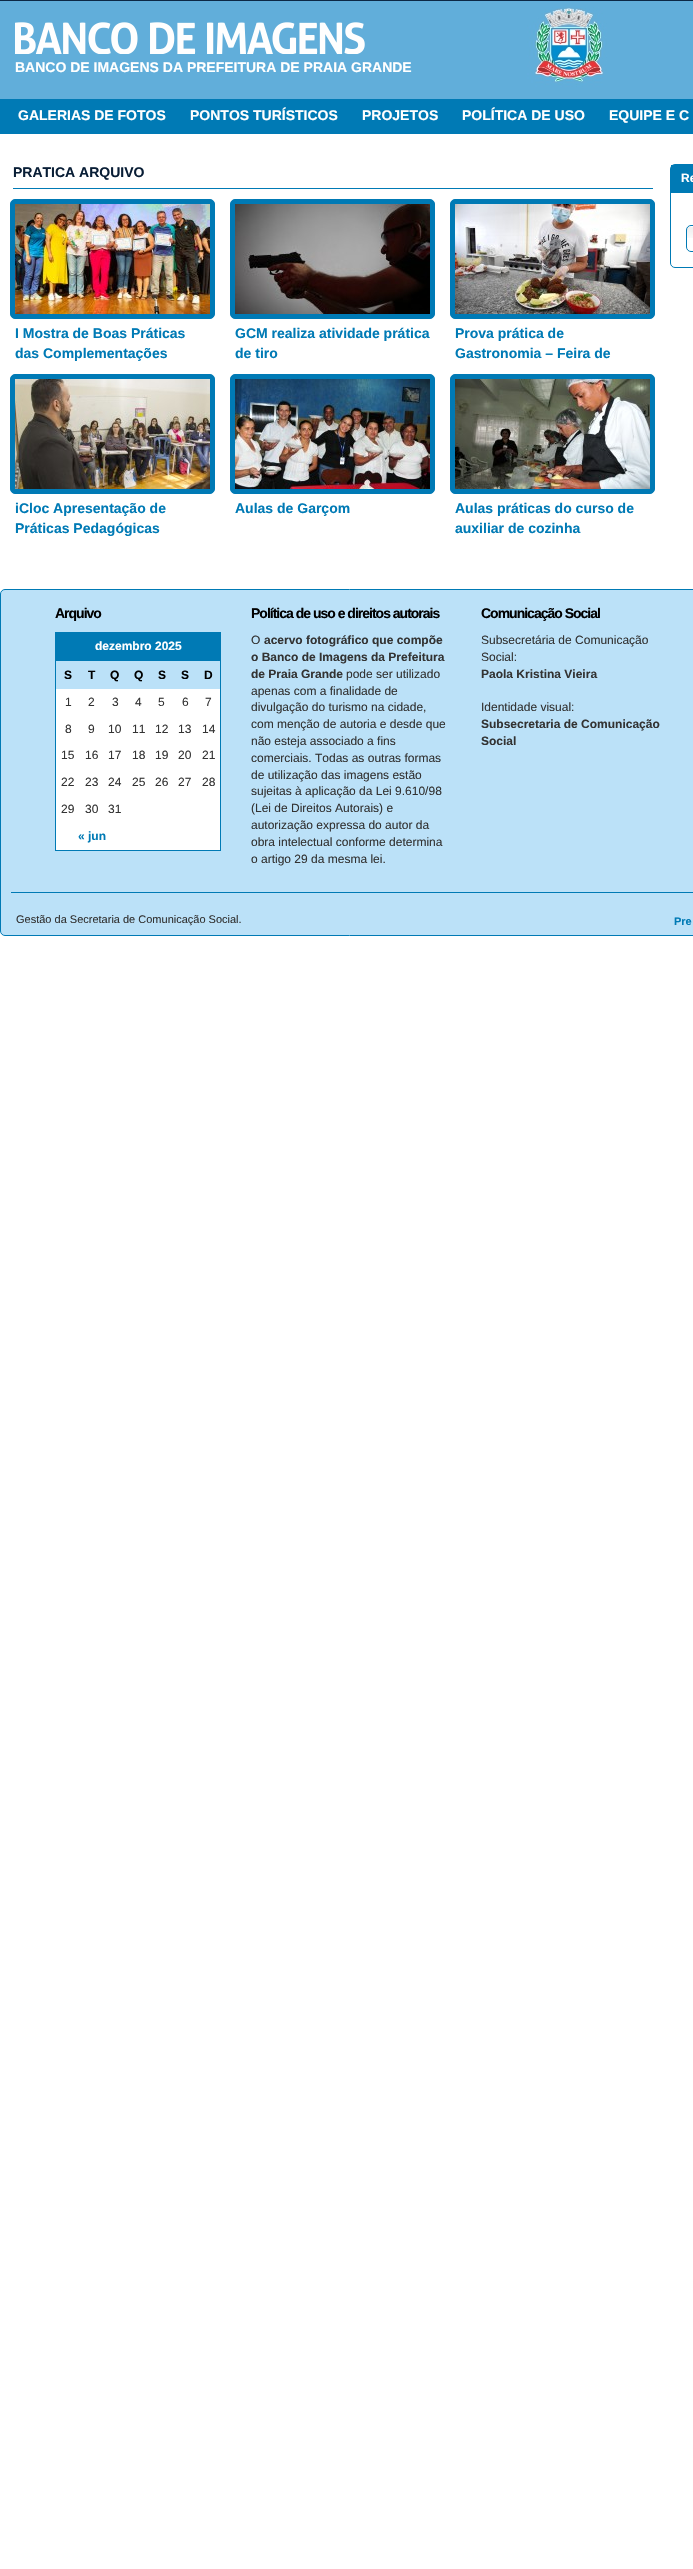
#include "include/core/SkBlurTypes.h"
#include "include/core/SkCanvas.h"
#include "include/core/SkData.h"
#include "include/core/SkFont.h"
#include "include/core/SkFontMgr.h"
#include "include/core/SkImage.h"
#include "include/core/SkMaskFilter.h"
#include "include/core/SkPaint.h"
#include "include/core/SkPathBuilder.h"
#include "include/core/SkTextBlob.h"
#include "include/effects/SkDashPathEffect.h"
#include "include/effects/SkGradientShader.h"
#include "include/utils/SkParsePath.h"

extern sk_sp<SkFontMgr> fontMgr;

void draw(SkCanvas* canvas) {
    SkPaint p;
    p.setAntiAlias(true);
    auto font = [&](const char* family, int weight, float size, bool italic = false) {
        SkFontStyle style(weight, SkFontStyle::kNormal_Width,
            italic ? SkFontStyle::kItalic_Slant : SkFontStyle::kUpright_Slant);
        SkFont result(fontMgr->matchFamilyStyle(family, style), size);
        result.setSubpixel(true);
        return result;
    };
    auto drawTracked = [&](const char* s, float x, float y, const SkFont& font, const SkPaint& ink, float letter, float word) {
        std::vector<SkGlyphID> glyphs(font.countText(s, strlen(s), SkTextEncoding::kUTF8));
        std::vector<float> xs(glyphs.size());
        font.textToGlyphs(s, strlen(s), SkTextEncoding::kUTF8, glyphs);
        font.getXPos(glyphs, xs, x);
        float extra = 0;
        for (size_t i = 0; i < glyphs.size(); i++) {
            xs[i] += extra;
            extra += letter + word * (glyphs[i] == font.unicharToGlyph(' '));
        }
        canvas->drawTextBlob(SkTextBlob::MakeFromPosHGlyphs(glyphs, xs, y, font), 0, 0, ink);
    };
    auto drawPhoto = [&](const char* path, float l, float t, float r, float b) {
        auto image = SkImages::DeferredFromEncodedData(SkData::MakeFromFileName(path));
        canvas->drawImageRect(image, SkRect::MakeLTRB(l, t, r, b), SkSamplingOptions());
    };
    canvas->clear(0xFF0C2845);
    drawPhoto("media/1.png", 0, 1, 693, 99);
    p.setColor(0xFF007AB5);
    canvas->drawRect(SkRect::MakeLTRB(0, 99, 693, 134), p);
    drawPhoto("media/2.png", 15, 22, 365, 54);
    auto font1 = font("Liberation Sans", 700, 14);
    p.setColor(0xFFFFFFFF);
    {
        const struct { const char* s; float x, y; } items[] = {
            {"BANCO DE IMAGENS DA PREFEITURA DE PRAIA GRANDE", 15, 72},
            {"GALERIAS DE FOTOS", 18, 120},
            {"PONTOS TURÍSTICOS", 190, 120},
            {"PROJETOS", 362, 120},
            {"POLÍTICA DE USO", 462, 120},
            {"EQUIPE E C", 609, 120},
        };
        for (auto [s, x, y] : items) {
            canvas->drawString(s, x, y, font1, p);
        }
    }
    canvas->drawRect(SkRect::MakeLTRB(0, 134, 693, 2569), p);
    p.setColor(0xFF007AB5);
    canvas->drawRect(SkRect::MakeLTRB(13, 188, 653, 189), p);
    p.setColor(0xFF091E36);
    canvas->drawString("PRATICA ARQUIVO", 13, 177, font1, p);
    p.setColor(0xFF007AB5);
    canvas->drawRoundRect(SkRect::MakeLTRB(10.5f, 199.5f, 214.5f, 318.5f), 4.5f, 4.5f, p);
    p.setStyle(SkPaint::kStroke_Style);
    p.setStrokeWidth(1);
    canvas->drawRoundRect(SkRect::MakeLTRB(10.5f, 199.5f, 214.5f, 318.5f), 4.5f, 4.5f, p);
    drawPhoto("media/3.png", 15, 204, 210, 314);
    p.setStyle(SkPaint::kFill_Style);
    canvas->drawString("I Mostra de Boas Práticas", 15, 338, font1, p);
    canvas->drawString("das Complementações", 15, 358, font1, p);
    canvas->drawRoundRect(SkRect::MakeLTRB(230.5f, 199.5f, 434.5f, 318.5f), 4.5f, 4.5f, p);
    p.setStyle(SkPaint::kStroke_Style);
    canvas->drawRoundRect(SkRect::MakeLTRB(230.5f, 199.5f, 434.5f, 318.5f), 4.5f, 4.5f, p);
    drawPhoto("media/4.png", 235, 204, 430, 314);
    p.setStyle(SkPaint::kFill_Style);
    canvas->drawString("GCM realiza atividade prática", 235, 338, font1, p);
    canvas->drawString("de tiro", 235, 358, font1, p);
    canvas->drawRoundRect(SkRect::MakeLTRB(450.5f, 199.5f, 654.5f, 318.5f), 4.5f, 4.5f, p);
    p.setStyle(SkPaint::kStroke_Style);
    canvas->drawRoundRect(SkRect::MakeLTRB(450.5f, 199.5f, 654.5f, 318.5f), 4.5f, 4.5f, p);
    drawPhoto("media/5.png", 455, 204, 650, 314);
    p.setStyle(SkPaint::kFill_Style);
    canvas->drawString("Prova prática de", 455, 338, font1, p);
    canvas->drawString("Gastronomia – Feira de", 455, 358, font1, p);
    canvas->drawRoundRect(SkRect::MakeLTRB(10.5f, 374.5f, 214.5f, 493.5f), 4.5f, 4.5f, p);
    p.setStyle(SkPaint::kStroke_Style);
    canvas->drawRoundRect(SkRect::MakeLTRB(10.5f, 374.5f, 214.5f, 493.5f), 4.5f, 4.5f, p);
    drawPhoto("media/6.png", 15, 379, 210, 489);
    p.setStyle(SkPaint::kFill_Style);
    canvas->drawString("iCloc Apresentação de", 15, 513, font1, p);
    canvas->drawString("Práticas Pedagógicas", 15, 533, font1, p);
    canvas->drawRoundRect(SkRect::MakeLTRB(230.5f, 374.5f, 434.5f, 493.5f), 4.5f, 4.5f, p);
    p.setStyle(SkPaint::kStroke_Style);
    canvas->drawRoundRect(SkRect::MakeLTRB(230.5f, 374.5f, 434.5f, 493.5f), 4.5f, 4.5f, p);
    drawPhoto("media/7.png", 235, 379, 430, 489);
    p.setStyle(SkPaint::kFill_Style);
    canvas->drawString("Aulas de Garçom", 235, 513, font1, p);
    canvas->drawRoundRect(SkRect::MakeLTRB(450.5f, 374.5f, 654.5f, 493.5f), 4.5f, 4.5f, p);
    p.setStyle(SkPaint::kStroke_Style);
    canvas->drawRoundRect(SkRect::MakeLTRB(450.5f, 374.5f, 654.5f, 493.5f), 4.5f, 4.5f, p);
    drawPhoto("media/8.png", 455, 379, 650, 489);
    p.setStyle(SkPaint::kFill_Style);
    canvas->drawString("Aulas práticas do curso de", 455, 513, font1, p);
    canvas->drawString("auxiliar de cozinha", 455, 533, font1, p);
    p.setStyle(SkPaint::kStroke_Style);
    canvas->drawRoundRect(SkRect::MakeLTRB(670.5f, 164.5f, 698.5f, 267.5f), 4.5f, 4.5f, p);
    p.setStyle(SkPaint::kFill_Style);
    canvas->drawRect(SkRect::MakeLTRB(671, 165, 693, 193), p);
    auto font2 = font("Liberation Sans", 700, 12);
    p.setColor(0xFFFFFFFF);
    canvas->drawString("Re", 681, 182, font2, p);
    drawPhoto("media/9.png", 686, 227, 693, 238);
    p.setStyle(SkPaint::kStroke_Style);
    p.setColor(0xFF007AB5);
    canvas->drawRoundRect(SkRect::MakeLTRB(686.5f, 225.5f, 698.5f, 251.5f), 4.5f, 4.5f, p);
    p.setStyle(SkPaint::kFill_Style);
    p.setColor(0xFFBBE1F8);
    canvas->drawRoundRect(SkRect::MakeLTRB(0.5f, 589.5f, 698.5f, 935.5f), 4.5f, 4.5f, p);
    p.setStyle(SkPaint::kStroke_Style);
    p.setColor(0xFF007AB5);
    canvas->drawRoundRect(SkRect::MakeLTRB(0.5f, 589.5f, 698.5f, 935.5f), 4.5f, 4.5f, p);
    p.setStyle(SkPaint::kFill_Style);
    canvas->drawRect(SkRect::MakeLTRB(11, 892, 693, 893), p);
    p.setColor(0xFF000000);
    drawTracked("Arquivo", 55, 618, font1, p, -1, 0);
    {
        const struct { float l, t, r, b; SkColor color; } items[] = {
            {220, 632, 221, 851, 0xFF007AB5},
            {55, 850, 221, 851, 0xFF007AB5},
            {55, 632, 56, 851, 0xFF007AB5},
            {56, 632, 220, 661, 0xFF007AB5},
        };
        for (auto [l, t, r, b, color] : items) {
            p.setColor(color);
            canvas->drawRect(SkRect::MakeLTRB(l, t, r, b), p);
        }
    }
    p.setColor(0xFFFFFFFF);
    canvas->drawString("dezembro 2025", 95, 650, font2, p);
    p.setColor(0xFF000000);
    {
        const struct { const char* s; float x, y; } items[] = {
            {"S", 64, 679},
            {"T", 88, 679},
            {"Q", 110, 679},
            {"Q", 134, 679},
            {"S", 158, 679},
            {"S", 181, 679},
            {"D", 204, 679},
        };
        for (auto [s, x, y] : items) {
            canvas->drawString(s, x, y, font2, p);
        }
    }
    p.setColor(0xFFFFFFFF);
    canvas->drawRect(SkRect::MakeLTRB(56, 689, 220, 716), p);
    auto font3 = font("Liberation Sans", 400, 12);
    p.setColor(0xFF333333);
    {
        const struct { const char* s; float x, y; } items[] = {
            {"1", 65, 706},
            {"2", 88, 706},
            {"3", 112, 706},
            {"4", 135, 706},
            {"5", 158, 706},
            {"6", 182, 706},
            {"7", 205, 706},
        };
        for (auto [s, x, y] : items) {
            canvas->drawString(s, x, y, font3, p);
        }
    }
    p.setColor(0xFFFFFFFF);
    canvas->drawRect(SkRect::MakeLTRB(56, 716, 220, 742), p);
    p.setColor(0xFF333333);
    {
        const struct { const char* s; float x, y; } items[] = {
            {"8", 65, 733},
            {"9", 88, 733},
            {"10", 108, 733},
            {"11", 132, 733},
            {"12", 155, 733},
            {"13", 178, 733},
            {"14", 202, 733},
        };
        for (auto [s, x, y] : items) {
            canvas->drawString(s, x, y, font3, p);
        }
    }
    p.setColor(0xFFFFFFFF);
    canvas->drawRect(SkRect::MakeLTRB(56, 742, 220, 769), p);
    p.setColor(0xFF333333);
    {
        const struct { const char* s; float x, y; } items[] = {
            {"15", 61, 759},
            {"16", 85, 759},
            {"17", 108, 759},
            {"18", 132, 759},
            {"19", 155, 759},
            {"20", 178, 759},
            {"21", 202, 759},
        };
        for (auto [s, x, y] : items) {
            canvas->drawString(s, x, y, font3, p);
        }
    }
    p.setColor(0xFFFFFFFF);
    canvas->drawRect(SkRect::MakeLTRB(56, 769, 220, 796), p);
    p.setColor(0xFF333333);
    {
        const struct { const char* s; float x, y; } items[] = {
            {"22", 61, 786},
            {"23", 85, 786},
            {"24", 108, 786},
            {"25", 132, 786},
            {"26", 155, 786},
            {"27", 178, 786},
            {"28", 202, 786},
        };
        for (auto [s, x, y] : items) {
            canvas->drawString(s, x, y, font3, p);
        }
    }
    p.setColor(0xFFFFFFFF);
    canvas->drawRect(SkRect::MakeLTRB(56, 796, 220, 823), p);
    p.setColor(0xFF333333);
    {
        const struct { const char* s; float x, y; } items[] = {
            {"29", 61, 813},
            {"30", 85, 813},
            {"31", 108, 813},
        };
        for (auto [s, x, y] : items) {
            canvas->drawString(s, x, y, font3, p);
        }
    }
    p.setColor(0xFFFFFFFF);
    canvas->drawRect(SkRect::MakeLTRB(56, 823, 220, 850), p);
    p.setColor(0xFF007AB5);
    canvas->drawString("« jun", 78, 840, font2, p);
    p.setColor(0xFF000000);
    drawTracked("Política de uso e direitos autorais", 251, 618, font1, p, -1, 0);
    p.setColor(0xFF333333);
    canvas->drawString("O", 251, 644, font3, p);
    {
        const struct { const char* s; float x, y; } items[] = {
            {"acervo fotográfico que compõe", 264, 644},
            {"o Banco de Imagens da Prefeitura", 251, 661},
            {"de Praia Grande", 251, 678},
        };
        for (auto [s, x, y] : items) {
            canvas->drawString(s, x, y, font2, p);
        }
    }
    {
        const struct { const char* s; float x, y; } items[] = {
            {"pode ser utilizado", 346, 678},
            {"apenas com a finalidade de", 251, 695},
            {"divulgação do turismo na cidade,", 251, 711},
            {"com menção de autoria e desde que", 251, 728},
            {"não esteja associado a fins", 251, 745},
            {"comerciais. Todas as outras formas", 251, 762},
            {"de utilização das imagens estão", 251, 779},
            {"sujeitas à aplicação da Lei 9.610/98", 251, 795},
            {"(Lei de Direitos Autorais) e", 251, 812},
            {"autorização expressa do autor da", 251, 829},
            {"obra intelectual conforme determina", 251, 846},
            {"o artigo 29 da mesma lei.", 251, 863},
        };
        for (auto [s, x, y] : items) {
            canvas->drawString(s, x, y, font3, p);
        }
    }
    p.setColor(0xFF000000);
    drawTracked("Comunicação Social", 481, 618, font1, p, -1, 0);
    p.setColor(0xFF333333);
    canvas->drawString("Subsecretária de Comunicação", 481, 644, font3, p);
    canvas->drawString("Social:", 481, 661, font3, p);
    canvas->drawString("Paola Kristina Vieira", 481, 678, font2, p);
    canvas->drawString("Identidade visual:", 481, 711, font3, p);
    canvas->drawString("Subsecretaria de Comunicação", 481, 728, font2, p);
    canvas->drawString("Social", 481, 745, font2, p);
    auto font4 = font("Liberation Sans", 400, 11);
    canvas->drawString("Gestão da Secretaria de Comunicação Social.", 16, 923, font4, p);
    auto font5 = font("Liberation Sans", 700, 11);
    p.setColor(0xFF007AB5);
    canvas->drawString("Pre", 674, 925, font5, p);
}
